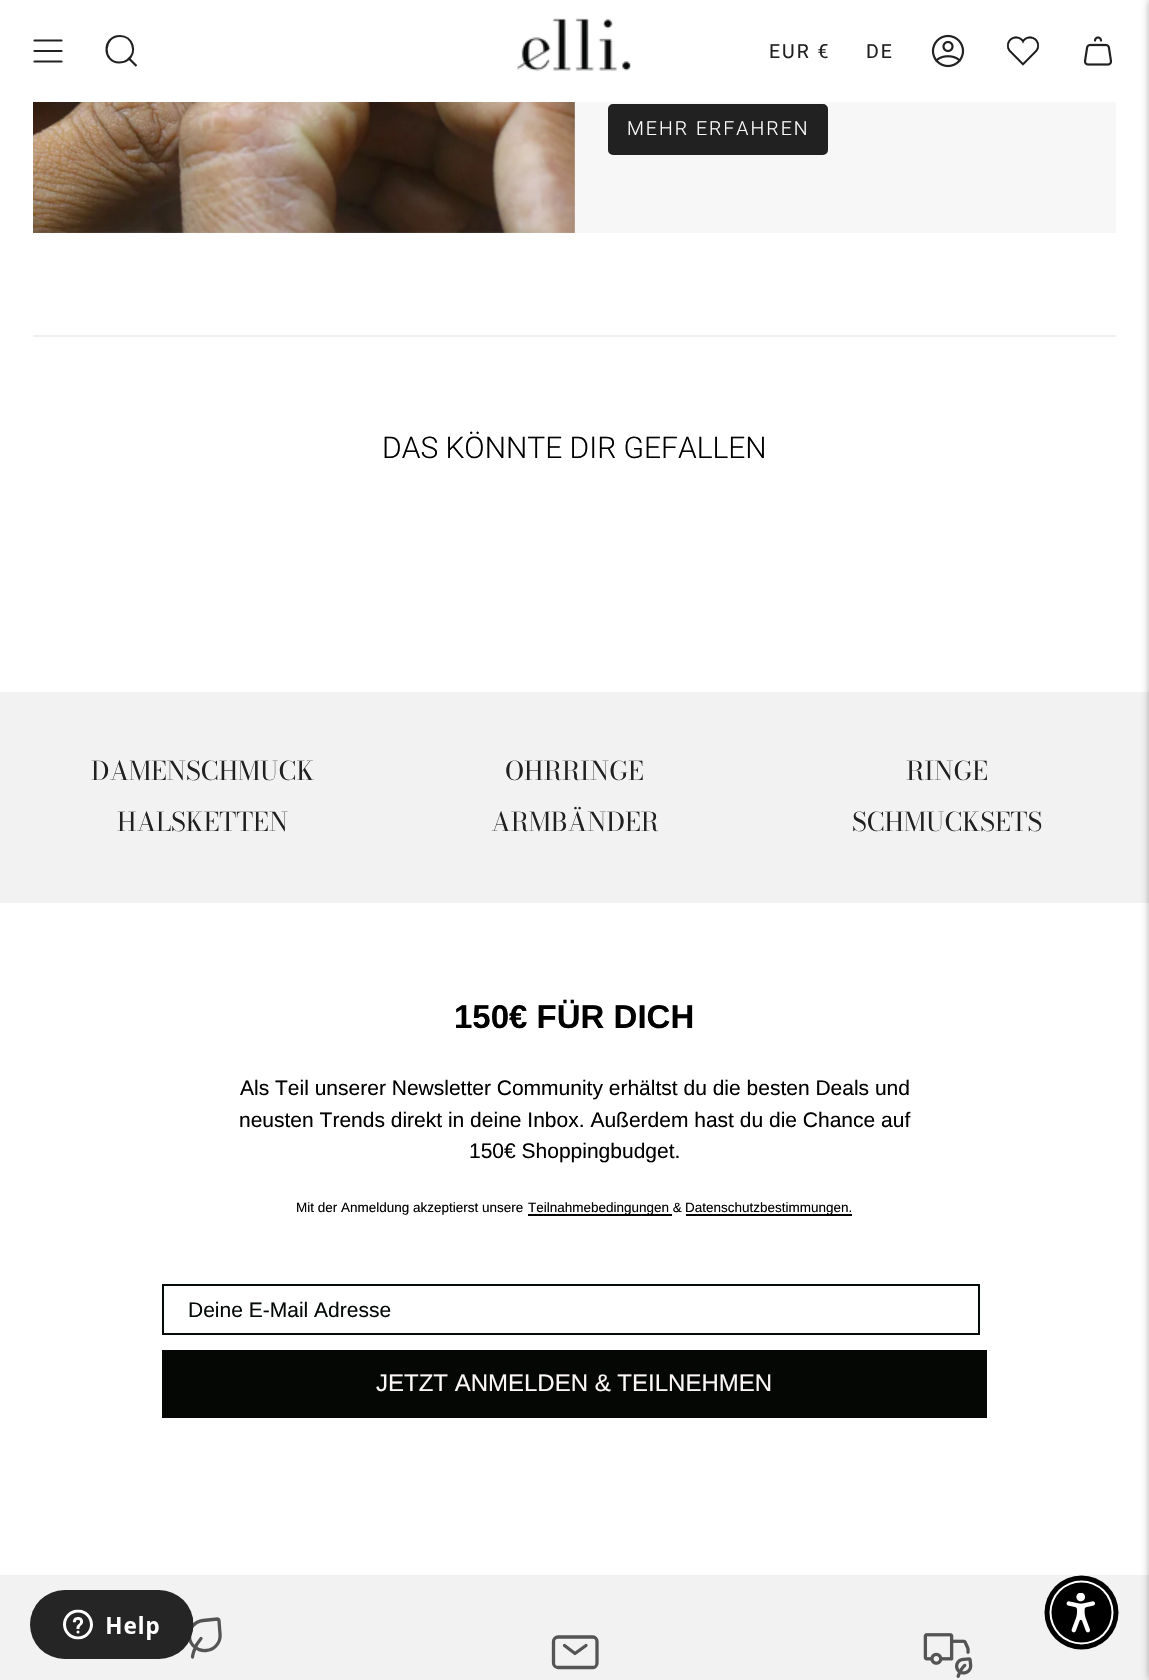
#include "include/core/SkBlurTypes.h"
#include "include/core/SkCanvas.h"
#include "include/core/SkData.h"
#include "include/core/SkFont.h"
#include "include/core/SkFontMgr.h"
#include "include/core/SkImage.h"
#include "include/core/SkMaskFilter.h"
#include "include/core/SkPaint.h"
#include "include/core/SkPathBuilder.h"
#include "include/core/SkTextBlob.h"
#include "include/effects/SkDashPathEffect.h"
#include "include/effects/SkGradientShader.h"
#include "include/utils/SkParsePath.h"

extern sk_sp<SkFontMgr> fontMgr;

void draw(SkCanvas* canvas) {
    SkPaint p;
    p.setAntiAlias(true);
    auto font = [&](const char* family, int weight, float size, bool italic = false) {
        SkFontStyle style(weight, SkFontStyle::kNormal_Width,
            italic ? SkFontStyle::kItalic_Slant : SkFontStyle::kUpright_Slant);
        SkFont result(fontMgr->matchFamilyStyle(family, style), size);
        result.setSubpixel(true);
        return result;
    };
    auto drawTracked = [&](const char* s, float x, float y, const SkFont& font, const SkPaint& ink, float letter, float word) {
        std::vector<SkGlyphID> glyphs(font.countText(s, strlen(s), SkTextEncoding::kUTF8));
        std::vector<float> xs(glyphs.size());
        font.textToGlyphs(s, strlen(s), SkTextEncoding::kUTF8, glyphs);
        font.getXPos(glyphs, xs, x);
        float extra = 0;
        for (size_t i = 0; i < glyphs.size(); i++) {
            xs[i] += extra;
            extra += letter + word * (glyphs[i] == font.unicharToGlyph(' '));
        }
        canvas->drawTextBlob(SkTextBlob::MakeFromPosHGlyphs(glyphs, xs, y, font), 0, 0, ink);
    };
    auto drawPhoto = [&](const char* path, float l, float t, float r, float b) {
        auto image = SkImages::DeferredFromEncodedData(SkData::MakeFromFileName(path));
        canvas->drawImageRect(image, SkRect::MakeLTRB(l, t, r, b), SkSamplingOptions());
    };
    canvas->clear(0xFFFFFFFF);
    p.setStyle(SkPaint::kStroke_Style);
    p.setStrokeWidth(2.2f);
    p.setStrokeCap(SkPaint::kRound_Cap);
    p.setStrokeJoin(SkPaint::kRound_Join);
    p.setColor(0xFF212121);
    canvas->drawPath(SkPathBuilder().moveTo(34.5f, 40.5f).lineTo(61.5f, 40.5f).moveTo(34.5f, 51).lineTo(61.5f, 51).moveTo(34.5f, 61.5f).lineTo(61.5f, 61.5f).detach(), p);
    p.setStrokeCap(SkPaint::kButt_Cap);
    p.setStrokeJoin(SkPaint::kMiter_Join);
    canvas->drawPath(SkPathBuilder().moveTo(120, 36).cubicTo(132.5f, 36, 138, 52.5f, 127.5f, 60).cubicTo(125, 62, 122, 62.5f, 119, 62.5f).cubicTo(102, 62, 102.5f, 36, 120, 36).close().moveTo(129, 58.5f).lineTo(136.5f, 66).detach(), p);
    drawPhoto("media/1.png", 517, 18, 631, 71);
    auto font1 = font("Roboto", 400, 19.5f);
    p.setStyle(SkPaint::kFill_Style);
    drawTracked("EUR €", 769, 58, font1, p, 2, 0);
    drawTracked("DE", 866, 58, font1, p, 2, 0);
    drawPhoto("media/2.png", 931, 34, 965, 68);
    drawPhoto("media/3.png", 1006, 36, 1040, 66);
    drawPhoto("media/4.png", 1084, 36, 1112, 66);
    drawPhoto("media/5.png", 33, 102, 575, 233);
    p.setColor(0xFFF7F7F7);
    canvas->drawRect(SkRect::MakeLTRB(575, 102, 1116, 233), p);
    p.setColor(0xFF212121);
    canvas->drawRoundRect(SkRect::MakeLTRB(609, 105, 827, 154), 4, 4, p);
    p.setStyle(SkPaint::kStroke_Style);
    p.setStrokeWidth(2);
    canvas->drawRoundRect(SkRect::MakeLTRB(609, 105, 827, 154), 4, 4, p);
    auto font2 = font("Roboto", 300, 19.5f);
    p.setStyle(SkPaint::kFill_Style);
    p.setColor(0xFFFFFFFF);
    drawTracked("MEHR ERFAHREN", 627, 135, font2, p, 2, 0);
    p.setColor(0xFFF0F0F0);
    canvas->drawRect(SkRect::MakeLTRB(33, 335, 1116, 337), p);
    auto font3 = font("Roboto", 300, 30);
    p.setColor(0xFF000000);
    canvas->drawString("DAS KÖNNTE DIR GEFALLEN", 382, 458, font3, p);
    p.setColor(0xFFF2F2F2);
    canvas->drawRect(SkRect::MakeLTRB(0, 692, 1149, 903), p);
    canvas->drawRect(SkRect::MakeLTRB(0, 1575, 1149, 1680), p);
    p.setColor(0x80000000);
    p.setMaskFilter(SkMaskFilter::MakeBlur(kNormal_SkBlurStyle, 5));
    canvas->drawRect(SkRect::MakeLTRB(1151, 0, 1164, 1680), p);
    p.setMaskFilter(nullptr);
    auto font4 = font("Bodoni Moda", 400, 25.75f);
    p.setColor(0xFF212121);
    {
        const struct { const char* s; float x, y; } items[] = {
            {"DAMENSCHMUCK", 91, 780},
            {"HALSKETTEN", 117, 831},
            {"OHRRINGE", 505, 780},
            {"ARMBÄNDER", 491, 831},
            {"RINGE", 906, 780},
            {"SCHMUCKSETS", 852, 831},
        };
        for (auto [s, x, y] : items) {
            canvas->drawString(s, x, y, font4, p);
        }
    }
    auto font5 = font("Liberation Sans", 700, 33);
    p.setColor(0xFF000000);
    canvas->drawString("150€ FÜR DICH", 454, 1028, font5, p);
    auto font6 = font("Liberation Sans", 400, 21);
    {
        const struct { const char* s; float x, y; } items[] = {
            {"Als Teil unserer Newsletter Community erhältst du die besten Deals und", 240, 1095},
            {"neusten Trends direkt in deine Inbox. Außerdem hast du die Chance auf", 239, 1127},
            {"150€ Shoppingbudget.", 469, 1158},
        };
        for (auto [s, x, y] : items) {
            canvas->drawString(s, x, y, font6, p);
        }
    }
    auto font7 = font("Liberation Sans", 400, 13.5f);
    canvas->drawString("Mit der Anmeldung akzeptierst unsere", 296, 1212, font7, p);
    canvas->drawRect(SkRect::MakeLTRB(528, 1214, 672, 1216), p);
    canvas->drawString("Teilnahmebedingungen &", 528, 1212, font7, p);
    canvas->drawRect(SkRect::MakeLTRB(686, 1214, 852, 1216), p);
    canvas->drawString("Datenschutzbestimmungen.", 685, 1212, font7, p);
    p.setStyle(SkPaint::kStroke_Style);
    p.setColor(0xFF040A08);
    canvas->drawRect(SkRect::MakeLTRB(163, 1285, 979, 1334), p);
    p.setStyle(SkPaint::kFill_Style);
    canvas->drawString("Deine E-Mail Adresse", 188, 1317, font6, p);
    p.setColor(0xFF050705);
    canvas->drawRect(SkRect::MakeLTRB(162, 1350, 987, 1418), p);
    auto font8 = font("Liberation Sans", 400, 24);
    p.setColor(0xFFFCF7F7);
    canvas->drawString("JETZT ANMELDEN & TEILNEHMEN", 376, 1391, font8, p);
    p.setStyle(SkPaint::kStroke_Style);
    p.setStrokeWidth(3.3f);
    p.setStrokeCap(SkPaint::kRound_Cap);
    p.setStrokeJoin(SkPaint::kRound_Join);
    p.setColor(0xFF545454);
    canvas->drawPath(SkPathBuilder().moveTo(192.5f, 1657).cubicTo(192.5f, 1657, 193.5f, 1647, 201, 1638.5f).moveTo(219, 1620.5f).lineTo(220, 1634).cubicTo(221, 1642.5f, 214.5f, 1650, 206, 1650.5f).cubicTo(198, 1651.5f, 190, 1645.5f, 189.5f, 1637).cubicTo(188.5f, 1628.5f, 194.5f, 1621.5f, 203, 1620.5f).lineTo(217.5f, 1619).lineTo(218.5f, 1619.5f).close().detach(), p);
    canvas->drawPath(SkPathBuilder().moveTo(564.5f, 1645.5f).lineTo(575, 1653.5f).lineTo(586, 1645.5f).detach(), p);
    p.setStrokeCap(SkPaint::kButt_Cap);
    p.setStrokeJoin(SkPaint::kMiter_Join);
    canvas->drawPath(SkPathBuilder().moveTo(553.5f, 1663).lineTo(553.5f, 1641.5f).cubicTo(553.5f, 1639, 555.5f, 1637, 558, 1637).lineTo(593, 1637).cubicTo(595, 1637, 597, 1639, 597, 1641.5f).lineTo(597, 1663).cubicTo(597, 1665.5f, 595, 1667.5f, 593, 1667.5f).lineTo(558, 1667.5f).cubicTo(555.5f, 1667.5f, 553.5f, 1665.5f, 553.5f, 1663).close().detach(), p);
    drawPhoto("media/6.png", 923, 1633, 973, 1678);
    drawPhoto("media/7.png", 30, 1590, 194, 1659);
    p.setStyle(SkPaint::kFill_Style);
    p.setColor(0xFF000000);
    canvas->drawCircle(1081.5f, 1612.5f, 37, p);
    p.setColor(0xFFFFFFFF);
    canvas->drawCircle(1081.5f, 1612.5f, 32, p);
    p.setColor(0xFF000000);
    canvas->drawCircle(1081.5f, 1612.5f, 30, p);
    drawPhoto("media/8.png", 1066, 1593, 1095, 1633);
}
